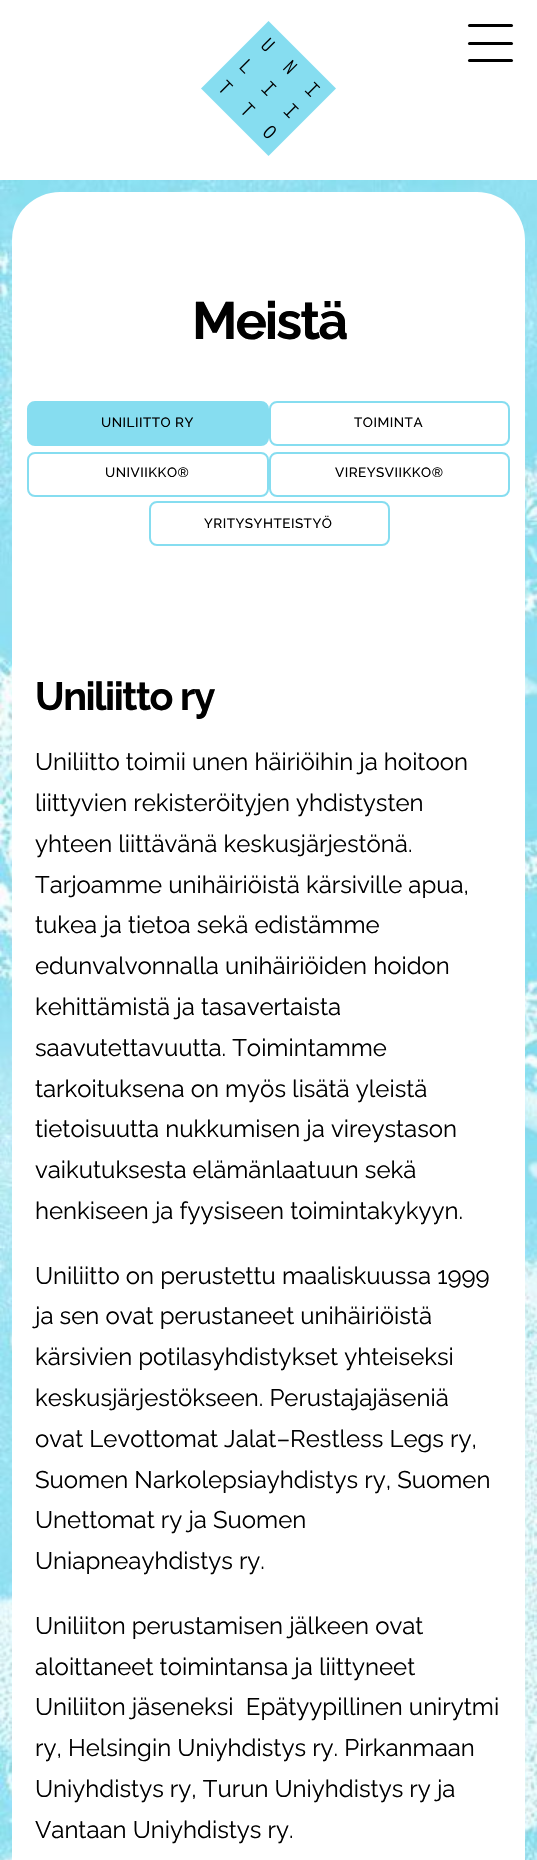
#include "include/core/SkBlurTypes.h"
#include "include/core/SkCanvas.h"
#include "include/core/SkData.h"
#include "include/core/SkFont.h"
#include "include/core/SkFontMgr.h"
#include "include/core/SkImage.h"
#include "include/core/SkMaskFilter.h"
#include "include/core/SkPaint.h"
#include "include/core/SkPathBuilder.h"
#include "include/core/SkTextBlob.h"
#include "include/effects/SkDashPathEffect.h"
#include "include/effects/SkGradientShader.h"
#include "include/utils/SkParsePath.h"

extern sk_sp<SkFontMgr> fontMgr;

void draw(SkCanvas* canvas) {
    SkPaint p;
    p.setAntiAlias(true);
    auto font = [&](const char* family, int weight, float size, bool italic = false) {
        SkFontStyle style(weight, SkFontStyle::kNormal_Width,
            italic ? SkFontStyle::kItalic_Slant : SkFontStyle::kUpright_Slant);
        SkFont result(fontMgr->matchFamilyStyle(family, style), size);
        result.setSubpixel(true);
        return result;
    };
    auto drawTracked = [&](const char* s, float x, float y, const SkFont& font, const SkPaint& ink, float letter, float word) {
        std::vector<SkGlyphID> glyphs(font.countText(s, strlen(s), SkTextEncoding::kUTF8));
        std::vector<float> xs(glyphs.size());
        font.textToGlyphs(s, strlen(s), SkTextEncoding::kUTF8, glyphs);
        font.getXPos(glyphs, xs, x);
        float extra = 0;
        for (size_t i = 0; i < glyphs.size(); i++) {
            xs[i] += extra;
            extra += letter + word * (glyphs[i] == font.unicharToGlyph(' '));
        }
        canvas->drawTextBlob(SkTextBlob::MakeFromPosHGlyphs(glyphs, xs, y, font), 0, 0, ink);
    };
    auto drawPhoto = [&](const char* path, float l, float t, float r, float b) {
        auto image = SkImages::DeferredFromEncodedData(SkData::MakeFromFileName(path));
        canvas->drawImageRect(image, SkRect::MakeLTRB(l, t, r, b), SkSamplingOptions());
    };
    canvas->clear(0xFFFFFFFF);
    drawPhoto("media/1.png", 201, 21, 336, 156);
    p.setColor(0xFF000000);
    canvas->drawRoundRect(SkRect::MakeLTRB(468, 24, 513, 27), 1.5f, 1.5f, p);
    canvas->drawRoundRect(SkRect::MakeLTRB(468, 42, 513, 45), 1.5f, 1.5f, p);
    canvas->drawRoundRect(SkRect::MakeLTRB(468, 59, 513, 62), 1.5f, 1.5f, p);
    drawPhoto("media/2.png", 0, 180, 537, 1860);
    p.setColor(0xFFFFFFFF);
    canvas->drawRoundRect(SkRect::MakeLTRB(12, 192, 525, 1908), 48, 48, p);
    auto font1 = font("Raleway", 700, 52.5f);
    p.setColor(0xFF000000);
    drawTracked("Meistä", 192, 339, font1, p, -2, 0);
    p.setColor(0xFF86DDF0);
    canvas->drawRoundRect(SkRect::MakeLTRB(28, 402, 268, 445), 7, 7, p);
    p.setStyle(SkPaint::kStroke_Style);
    p.setStrokeWidth(2);
    canvas->drawRoundRect(SkRect::MakeLTRB(28, 402, 268, 445), 7, 7, p);
    auto font2 = font("Raleway", 500, 13.5f);
    p.setStyle(SkPaint::kFill_Style);
    p.setColor(0xFF000000);
    drawTracked("UNILIITTO RY", 101, 427, font2, p, 0.5f, 0);
    p.setStyle(SkPaint::kStroke_Style);
    p.setColor(0xFF86DDF0);
    canvas->drawRoundRect(SkRect::MakeLTRB(270, 402, 509, 445), 7, 7, p);
    p.setStyle(SkPaint::kFill_Style);
    p.setColor(0xFF000000);
    drawTracked("TOIMINTA", 354, 427, font2, p, 0.5f, 0);
    p.setStyle(SkPaint::kStroke_Style);
    p.setColor(0xFF86DDF0);
    canvas->drawRoundRect(SkRect::MakeLTRB(28, 453, 268, 496), 7, 7, p);
    p.setStyle(SkPaint::kFill_Style);
    p.setColor(0xFF000000);
    drawTracked("UNIVIIKKO®", 105, 477, font2, p, 0.5f, 0);
    p.setStyle(SkPaint::kStroke_Style);
    p.setColor(0xFF86DDF0);
    canvas->drawRoundRect(SkRect::MakeLTRB(270, 453, 509, 496), 7, 7, p);
    p.setStyle(SkPaint::kFill_Style);
    p.setColor(0xFF000000);
    drawTracked("VIREYSVIIKKO®", 335, 477, font2, p, 0.5f, 0);
    p.setStyle(SkPaint::kStroke_Style);
    p.setColor(0xFF86DDF0);
    canvas->drawRoundRect(SkRect::MakeLTRB(150, 502, 389, 545), 7, 7, p);
    p.setStyle(SkPaint::kFill_Style);
    p.setColor(0xFF000000);
    drawTracked("YRITYSYHTEISTYÖ", 204, 528, font2, p, 0.5f, 0);
    auto font3 = font("Raleway", 700, 39.5f);
    drawTracked("Uniliitto ry", 35, 710, font3, p, -1.5f, 0);
    auto font4 = font("Raleway", 400, 24);
    {
        const struct { const char* s; float x, y; } items[] = {
            {"Uniliitto toimii unen häiriöihin ja hoitoon", 35, 770},
            {"liittyvien rekisteröityjen yhdistysten", 35, 811},
            {"yhteen liittävänä keskusjärjestönä.", 35, 852},
            {"Tarjoamme unihäiriöistä kärsiville apua,", 35, 893},
            {"tukea ja tietoa sekä edistämme", 35, 933},
            {"edunvalvonnalla unihäiriöiden hoidon", 35, 974},
            {"kehittämistä ja tasavertaista", 35, 1015},
            {"saavutettavuutta. Toimintamme", 35, 1056},
            {"tarkoituksena on myös lisätä yleistä", 35, 1097},
            {"tietoisuutta nukkumisen ja vireystason", 35, 1137},
            {"vaikutuksesta elämänlaatuun sekä", 35, 1178},
            {"henkiseen ja fyysiseen toimintakykyyn.", 35, 1219},
            {"Uniliitto on perustettu maaliskuussa 1999", 35, 1284},
            {"ja sen ovat perustaneet unihäiriöistä", 35, 1324},
            {"kärsivien potilasyhdistykset yhteiseksi", 35, 1365},
            {"keskusjärjestökseen. Perustajajäseniä", 35, 1406},
            {"ovat Levottomat Jalat–Restless Legs ry,", 35, 1447},
            {"Suomen Narkolepsiayhdistys ry, Suomen", 35, 1488},
            {"Unettomat ry ja Suomen", 35, 1528},
            {"Uniapneayhdistys ry.", 35, 1569},
            {"Uniliiton perustamisen jälkeen ovat", 35, 1634},
            {"aloittaneet toimintansa ja liittyneet", 35, 1675},
            {"Uniliiton jäseneksi  Epätyypillinen unirytmi", 35, 1715},
            {"ry, Helsingin Uniyhdistys ry. Pirkanmaan", 35, 1756},
            {"Uniyhdistys ry, Turun Uniyhdistys ry ja", 35, 1797},
            {"Vantaan Uniyhdistys ry.", 35, 1838},
        };
        for (auto [s, x, y] : items) {
            canvas->drawString(s, x, y, font4, p);
        }
    }
}
